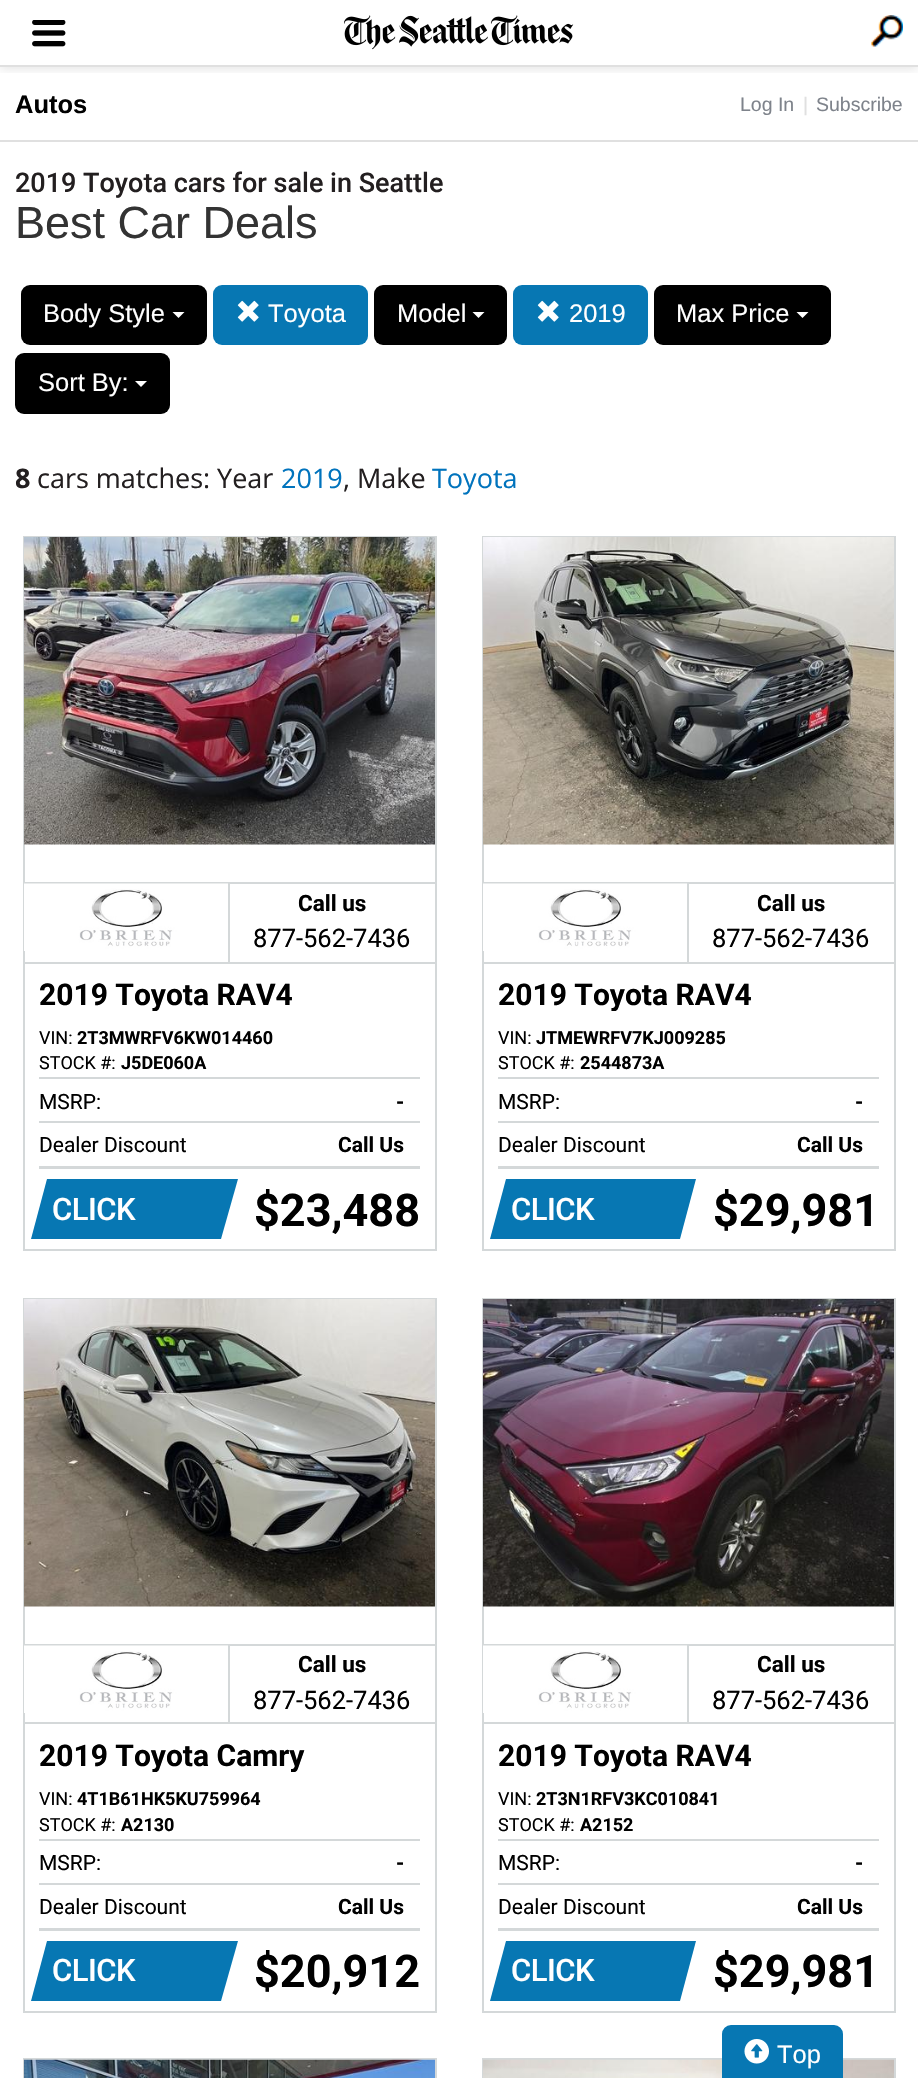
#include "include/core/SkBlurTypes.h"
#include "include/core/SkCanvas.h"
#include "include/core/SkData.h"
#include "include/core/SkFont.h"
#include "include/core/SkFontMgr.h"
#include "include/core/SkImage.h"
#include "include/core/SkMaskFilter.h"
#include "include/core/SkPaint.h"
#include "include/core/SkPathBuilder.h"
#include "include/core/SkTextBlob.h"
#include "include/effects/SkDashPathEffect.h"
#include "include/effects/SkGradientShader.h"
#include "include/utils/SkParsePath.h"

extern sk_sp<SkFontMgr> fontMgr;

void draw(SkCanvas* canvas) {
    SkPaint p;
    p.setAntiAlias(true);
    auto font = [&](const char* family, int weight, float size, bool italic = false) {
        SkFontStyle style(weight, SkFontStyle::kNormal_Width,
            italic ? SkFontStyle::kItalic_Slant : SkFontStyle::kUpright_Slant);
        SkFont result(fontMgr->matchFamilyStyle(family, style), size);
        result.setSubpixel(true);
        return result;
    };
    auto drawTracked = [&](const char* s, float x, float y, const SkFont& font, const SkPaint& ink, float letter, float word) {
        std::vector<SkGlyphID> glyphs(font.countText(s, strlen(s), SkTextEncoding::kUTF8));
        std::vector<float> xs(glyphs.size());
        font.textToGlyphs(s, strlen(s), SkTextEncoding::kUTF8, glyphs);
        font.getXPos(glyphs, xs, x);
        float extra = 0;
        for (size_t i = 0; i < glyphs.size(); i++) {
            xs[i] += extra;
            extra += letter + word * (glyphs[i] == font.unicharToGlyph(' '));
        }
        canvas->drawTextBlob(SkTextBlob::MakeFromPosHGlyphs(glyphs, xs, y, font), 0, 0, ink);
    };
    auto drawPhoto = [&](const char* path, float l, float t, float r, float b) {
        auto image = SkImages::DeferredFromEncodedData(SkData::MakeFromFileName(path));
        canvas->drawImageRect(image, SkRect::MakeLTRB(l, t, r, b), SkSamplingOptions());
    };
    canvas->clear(0xFFFFFFFF);
    canvas->save();
    canvas->clipRect(SkRect::MakeLTRB(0, 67, 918, 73));
    p.setColor(0x1A000000);
    p.setMaskFilter(SkMaskFilter::MakeBlur(kNormal_SkBlurStyle, 5));
    canvas->drawRect(SkRect::MakeLTRB(0, 3, 918, 69), p);
    p.setMaskFilter(nullptr);
    canvas->restore();
    p.setColor(0xFFE0E0E0);
    canvas->drawRect(SkRect::MakeLTRB(0, 65, 918, 67), p);
    drawPhoto("media/1.png", 32, 20, 66, 47);
    drawPhoto("media/2.png", 344, 15, 574, 50);
    drawPhoto("media/3.png", 871, 15, 903, 47);
    canvas->drawRect(SkRect::MakeLTRB(0, 140, 918, 142), p);
    auto font1 = font("Liberation Sans", 700, 25.5f);
    p.setColor(0xFF000000);
    canvas->drawString("Autos", 15, 113, font1, p);
    auto font2 = font("Liberation Sans", 400, 19.5f);
    p.setColor(0xFF7E838B);
    canvas->drawString("Log In", 740, 111, font2, p);
    p.setColor(0xFFE0E0E0);
    canvas->drawString("|", 803, 111, font2, p);
    p.setColor(0xFF7E838B);
    canvas->drawString("Subscribe", 816, 111, font2, p);
    auto font3 = font("Roboto", 500, 27);
    p.setColor(0xFF231F20);
    canvas->drawString("2019 Toyota cars for sale in Seattle", 15, 192, font3, p);
    auto font4 = font("Liberation Sans", 400, 45);
    p.setColor(0xFF333333);
    canvas->drawString("Best Car Deals", 15, 238, font4, p);
    p.setColor(0xFF000000);
    canvas->drawRoundRect(SkRect::MakeLTRB(21, 285, 207, 345), 9, 9, p);
    auto font5 = font("Liberation Sans", 400, 25.5f);
    p.setColor(0xFFFFFFFF);
    canvas->drawString("Body Style", 43, 322, font5, p);
    canvas->drawPath(SkPathBuilder().moveTo(172.5f, 312).lineTo(184.5f, 312).lineTo(178.5f, 318).close().detach(), p);
    p.setColor(0xFF0777B3);
    canvas->drawRoundRect(SkRect::MakeLTRB(213, 285, 368, 345), 9, 9, p);
    drawPhoto("media/4.png", 237, 300, 259, 322);
    p.setColor(0xFFFFFFFF);
    canvas->drawString("Toyota", 268, 322, font5, p);
    p.setColor(0xFF000000);
    canvas->drawRoundRect(SkRect::MakeLTRB(374, 285, 507, 345), 9, 9, p);
    p.setColor(0xFFFFFFFF);
    canvas->drawString("Model", 397, 322, font5, p);
    canvas->drawPath(SkPathBuilder().moveTo(472.5f, 312).lineTo(484.5f, 312).lineTo(478.5f, 318).close().detach(), p);
    p.setColor(0xFF0777B3);
    canvas->drawRoundRect(SkRect::MakeLTRB(513, 285, 648, 345), 9, 9, p);
    drawPhoto("media/4.png", 537, 300, 559, 322);
    p.setColor(0xFFFFFFFF);
    canvas->drawString("2019", 569, 322, font5, p);
    p.setColor(0xFF000000);
    canvas->drawRoundRect(SkRect::MakeLTRB(654, 285, 831, 345), 9, 9, p);
    p.setColor(0xFFFFFFFF);
    canvas->drawString("Max Price", 676, 322, font5, p);
    canvas->drawPath(SkPathBuilder().moveTo(796.5f, 312).lineTo(808.5f, 312).lineTo(802.5f, 318).close().detach(), p);
    p.setColor(0xFF000000);
    canvas->drawRoundRect(SkRect::MakeLTRB(15, 353, 170, 414), 9, 9, p);
    p.setColor(0xFFFFFFFF);
    canvas->drawString("Sort By:", 38, 391, font5, p);
    canvas->drawPath(SkPathBuilder().moveTo(135, 381).lineTo(147, 381).lineTo(141, 387).close().detach(), p);
    auto font6 = font("Open Sans", 700, 27);
    p.setColor(0xFF231F20);
    canvas->drawString("8", 15, 488, font6, p);
    auto font7 = font("Open Sans", 400, 27);
    canvas->drawString("cars matches: Year", 37, 488, font7, p);
    p.setColor(0xFF0073BD);
    canvas->drawString("2019", 281, 488, font7, p);
    p.setColor(0xFF231F20);
    canvas->drawString(", Make", 343, 488, font7, p);
    p.setColor(0xFF0073BD);
    canvas->drawString("Toyota", 432, 488, font7, p);
    p.setStyle(SkPaint::kStroke_Style);
    p.setStrokeWidth(2);
    p.setColor(0xFFD4D8D9);
    canvas->drawRect(SkRect::MakeLTRB(24, 537, 436, 1250), p);
    drawPhoto("media/5.png", 24, 537, 435, 845);
    p.setStyle(SkPaint::kFill_Style);
    {
        const struct { float l, t, r, b; SkColor color; } items[] = {
            {24, 882, 435, 884, 0xFFD4D8D9},
            {228, 882, 230, 963, 0xFFD4D8D9},
            {24, 962, 435, 964, 0xFFD4D8D9},
        };
        for (auto [l, t, r, b, color] : items) {
            p.setColor(color);
            canvas->drawRect(SkRect::MakeLTRB(l, t, r, b), p);
        }
    }
    drawPhoto("media/6.png", 24, 883, 228, 951);
    auto font8 = font("Roboto", 700, 22.5f);
    p.setColor(0xFF000000);
    canvas->drawString("Call us", 298, 911, font8, p);
    auto font9 = font("Roboto", 400, 25.5f);
    canvas->drawString("877-562-7436", 253, 947, font9, p);
    canvas->save();
    canvas->clipRect(SkRect::MakeLTRB(39, 978, 293, 1011));
    auto font10 = font("Roboto", 700, 30);
    canvas->drawString("2019 Toyota RAV4", 39, 1005, font10, p);
    canvas->restore();
    auto font11 = font("Roboto", 400, 18);
    canvas->drawString("VIN:", 39, 1044, font11, p);
    auto font12 = font("Roboto", 700, 18);
    canvas->drawString("2T3MWRFV6KW014460", 77, 1044, font12, p);
    canvas->drawString("STOCK #:", 39, 1069, font11, p);
    canvas->drawString("J5DE060A", 121, 1069, font12, p);
    p.setColor(0xFFD4D8D9);
    canvas->drawRect(SkRect::MakeLTRB(39, 1077, 420, 1079), p);
    canvas->drawRect(SkRect::MakeLTRB(39, 1121, 420, 1123), p);
    auto font13 = font("Roboto", 400, 21);
    p.setColor(0xFF000000);
    canvas->drawString("MSRP:", 39, 1109, font13, p);
    auto font14 = font("Roboto", 700, 21);
    canvas->drawString("-", 396, 1109, font14, p);
    p.setColor(0xFFD4D8D9);
    canvas->drawRect(SkRect::MakeLTRB(39, 1166, 420, 1169), p);
    p.setColor(0xFF000000);
    canvas->drawString("Dealer Discount", 39, 1152, font13, p);
    canvas->drawString("Call Us", 338, 1152, font14, p);
    p.setColor(0xFF0777B3);
    canvas->drawPath(SkPathBuilder().moveTo(47, 1179).lineTo(238, 1179).lineTo(221, 1239).lineTo(31, 1239).close().detach(), p);
    auto font15 = font("Roboto", 500, 31);
    p.setColor(0xFFFFFFFF);
    drawTracked("CLICK", 52, 1220, font15, p, -0.5f, 0);
    auto font16 = font("Roboto", 700, 45);
    p.setColor(0xFF000000);
    canvas->drawString("$23,488", 254, 1226, font16, p);
    p.setStyle(SkPaint::kStroke_Style);
    p.setColor(0xFFD4D8D9);
    canvas->drawRect(SkRect::MakeLTRB(483, 537, 895, 1250), p);
    drawPhoto("media/7.png", 483, 537, 894, 845);
    p.setStyle(SkPaint::kFill_Style);
    {
        const struct { float l, t, r, b; SkColor color; } items[] = {
            {483, 882, 894, 884, 0xFFD4D8D9},
            {687, 882, 689, 963, 0xFFD4D8D9},
            {483, 962, 894, 964, 0xFFD4D8D9},
        };
        for (auto [l, t, r, b, color] : items) {
            p.setColor(color);
            canvas->drawRect(SkRect::MakeLTRB(l, t, r, b), p);
        }
    }
    drawPhoto("media/8.png", 483, 883, 687, 951);
    p.setColor(0xFF000000);
    canvas->drawString("Call us", 757, 911, font8, p);
    canvas->drawString("877-562-7436", 712, 947, font9, p);
    canvas->save();
    canvas->clipRect(SkRect::MakeLTRB(498, 978, 752, 1011));
    canvas->drawString("2019 Toyota RAV4", 498, 1005, font10, p);
    canvas->restore();
    canvas->drawString("VIN:", 498, 1044, font11, p);
    canvas->drawString("JTMEWRFV7KJ009285", 536, 1044, font12, p);
    canvas->drawString("STOCK #:", 498, 1069, font11, p);
    canvas->drawString("2544873A", 580, 1069, font12, p);
    p.setColor(0xFFD4D8D9);
    canvas->drawRect(SkRect::MakeLTRB(498, 1077, 879, 1079), p);
    canvas->drawRect(SkRect::MakeLTRB(498, 1121, 879, 1123), p);
    p.setColor(0xFF000000);
    canvas->drawString("MSRP:", 498, 1109, font13, p);
    canvas->drawString("-", 855, 1109, font14, p);
    p.setColor(0xFFD4D8D9);
    canvas->drawRect(SkRect::MakeLTRB(498, 1166, 879, 1169), p);
    p.setColor(0xFF000000);
    canvas->drawString("Dealer Discount", 498, 1152, font13, p);
    canvas->drawString("Call Us", 797, 1152, font14, p);
    p.setColor(0xFF0777B3);
    canvas->drawPath(SkPathBuilder().moveTo(506, 1179).lineTo(696, 1179).lineTo(680, 1239).lineTo(490, 1239).close().detach(), p);
    p.setColor(0xFFFFFFFF);
    drawTracked("CLICK", 511, 1220, font15, p, -0.5f, 0);
    p.setColor(0xFF000000);
    canvas->drawString("$29,981", 713, 1226, font16, p);
    p.setStyle(SkPaint::kStroke_Style);
    p.setColor(0xFFD4D8D9);
    canvas->drawRect(SkRect::MakeLTRB(24, 1299, 436, 2012), p);
    drawPhoto("media/9.png", 24, 1299, 435, 1607);
    p.setStyle(SkPaint::kFill_Style);
    {
        const struct { float l, t, r, b; SkColor color; } items[] = {
            {24, 1644, 435, 1646, 0xFFD4D8D9},
            {228, 1644, 230, 1724, 0xFFD4D8D9},
            {24, 1722, 435, 1724, 0xFFD4D8D9},
        };
        for (auto [l, t, r, b, color] : items) {
            p.setColor(color);
            canvas->drawRect(SkRect::MakeLTRB(l, t, r, b), p);
        }
    }
    drawPhoto("media/6.png", 24, 1645, 228, 1713);
    p.setColor(0xFF000000);
    canvas->drawString("Call us", 298, 1672, font8, p);
    canvas->drawString("877-562-7436", 253, 1709, font9, p);
    canvas->save();
    canvas->clipRect(SkRect::MakeLTRB(39, 1739, 305, 1772));
    canvas->drawString("2019 Toyota Camry", 39, 1766, font10, p);
    canvas->restore();
    canvas->drawString("VIN:", 39, 1805, font11, p);
    canvas->drawString("4T1B61HK5KU759964", 77, 1805, font12, p);
    canvas->drawString("STOCK #:", 39, 1831, font11, p);
    canvas->drawString("A2130", 121, 1831, font12, p);
    p.setColor(0xFFD4D8D9);
    canvas->drawRect(SkRect::MakeLTRB(39, 1839, 420, 1841), p);
    canvas->drawRect(SkRect::MakeLTRB(39, 1883, 420, 1885), p);
    p.setColor(0xFF000000);
    canvas->drawString("MSRP:", 39, 1870, font13, p);
    canvas->drawString("-", 396, 1870, font14, p);
    p.setColor(0xFFD4D8D9);
    canvas->drawRect(SkRect::MakeLTRB(39, 1928, 420, 1931), p);
    p.setColor(0xFF000000);
    canvas->drawString("Dealer Discount", 39, 1914, font13, p);
    canvas->drawString("Call Us", 338, 1914, font14, p);
    p.setColor(0xFF0777B3);
    canvas->drawPath(SkPathBuilder().moveTo(47, 1941).lineTo(238, 1941).lineTo(221, 2001).lineTo(31, 2001).close().detach(), p);
    p.setColor(0xFFFFFFFF);
    drawTracked("CLICK", 52, 1981, font15, p, -0.5f, 0);
    p.setColor(0xFF000000);
    canvas->drawString("$20,912", 254, 1987, font16, p);
    p.setStyle(SkPaint::kStroke_Style);
    p.setColor(0xFFD4D8D9);
    canvas->drawRect(SkRect::MakeLTRB(483, 1299, 895, 2012), p);
    drawPhoto("media/10.png", 483, 1299, 894, 1607);
    p.setStyle(SkPaint::kFill_Style);
    {
        const struct { float l, t, r, b; SkColor color; } items[] = {
            {483, 1644, 894, 1646, 0xFFD4D8D9},
            {687, 1644, 689, 1724, 0xFFD4D8D9},
            {483, 1722, 894, 1724, 0xFFD4D8D9},
        };
        for (auto [l, t, r, b, color] : items) {
            p.setColor(color);
            canvas->drawRect(SkRect::MakeLTRB(l, t, r, b), p);
        }
    }
    drawPhoto("media/8.png", 483, 1645, 687, 1713);
    p.setColor(0xFF000000);
    canvas->drawString("Call us", 757, 1672, font8, p);
    canvas->drawString("877-562-7436", 712, 1709, font9, p);
    canvas->save();
    canvas->clipRect(SkRect::MakeLTRB(498, 1739, 752, 1772));
    canvas->drawString("2019 Toyota RAV4", 498, 1766, font10, p);
    canvas->restore();
    canvas->drawString("VIN:", 498, 1805, font11, p);
    canvas->drawString("2T3N1RFV3KC010841", 536, 1805, font12, p);
    canvas->drawString("STOCK #:", 498, 1831, font11, p);
    canvas->drawString("A2152", 580, 1831, font12, p);
    p.setColor(0xFFD4D8D9);
    canvas->drawRect(SkRect::MakeLTRB(498, 1839, 879, 1841), p);
    canvas->drawRect(SkRect::MakeLTRB(498, 1883, 879, 1885), p);
    p.setColor(0xFF000000);
    canvas->drawString("MSRP:", 498, 1870, font13, p);
    canvas->drawString("-", 855, 1870, font14, p);
    p.setColor(0xFFD4D8D9);
    canvas->drawRect(SkRect::MakeLTRB(498, 1928, 879, 1931), p);
    p.setColor(0xFF000000);
    canvas->drawString("Dealer Discount", 498, 1914, font13, p);
    canvas->drawString("Call Us", 797, 1914, font14, p);
    p.setColor(0xFF0777B3);
    canvas->drawPath(SkPathBuilder().moveTo(506, 1941).lineTo(696, 1941).lineTo(680, 2001).lineTo(490, 2001).close().detach(), p);
    p.setColor(0xFFFFFFFF);
    drawTracked("CLICK", 511, 1981, font15, p, -0.5f, 0);
    p.setColor(0xFF000000);
    canvas->drawString("$29,981", 713, 1987, font16, p);
    p.setStyle(SkPaint::kStroke_Style);
    p.setColor(0xFFD4D8D9);
    canvas->drawRect(SkRect::MakeLTRB(24, 2059, 436, 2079), p);
    drawPhoto("media/11.png", 24, 2059, 435, 2078);
    canvas->drawRect(SkRect::MakeLTRB(483, 2059, 895, 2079), p);
    drawPhoto("media/12.png", 483, 2059, 894, 2078);
    p.setStyle(SkPaint::kFill_Style);
    p.setColor(0xFF0777B3);
    canvas->drawRoundRect(SkRect::MakeLTRB(723, 2026, 842, 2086), 8, 8, p);
    p.setStyle(SkPaint::kStroke_Style);
    canvas->drawRoundRect(SkRect::MakeLTRB(723, 2026, 842, 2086), 8, 8, p);
    drawPhoto("media/13.png", 744, 2039, 769, 2064);
    p.setStyle(SkPaint::kFill_Style);
    p.setColor(0xFFFFFFFF);
    canvas->drawString("Top", 777, 2063, font5, p);
}
